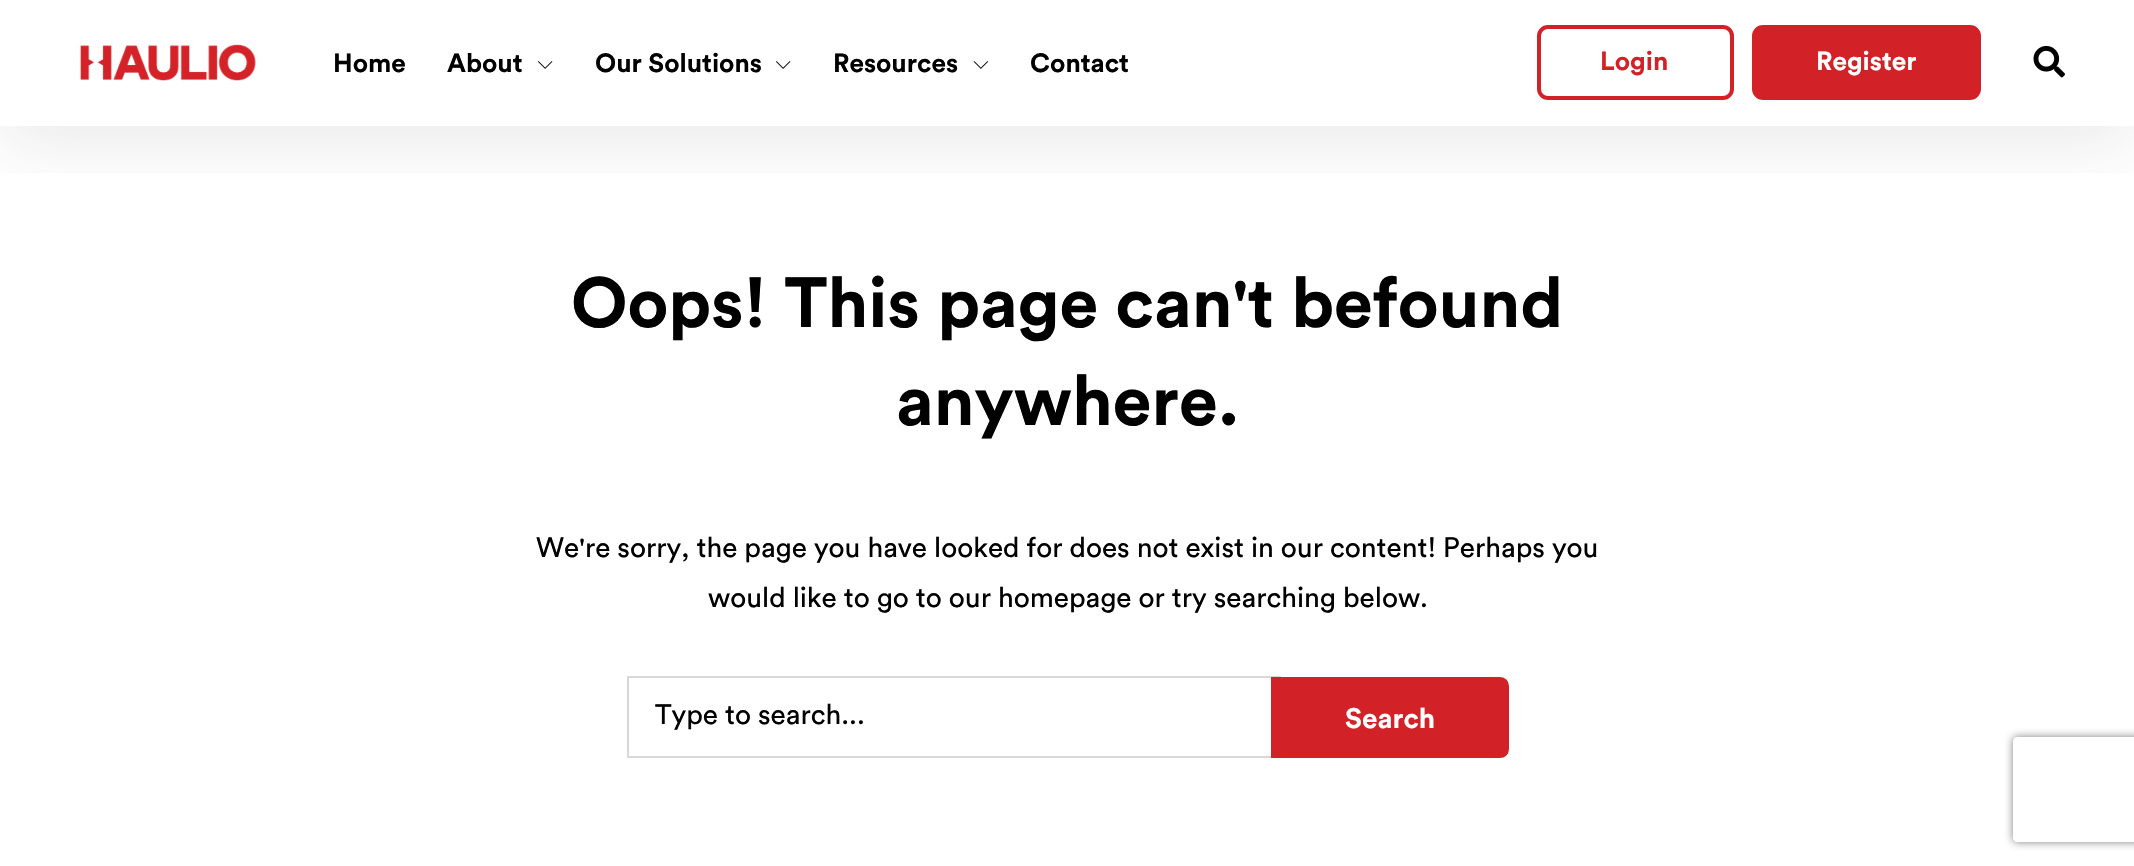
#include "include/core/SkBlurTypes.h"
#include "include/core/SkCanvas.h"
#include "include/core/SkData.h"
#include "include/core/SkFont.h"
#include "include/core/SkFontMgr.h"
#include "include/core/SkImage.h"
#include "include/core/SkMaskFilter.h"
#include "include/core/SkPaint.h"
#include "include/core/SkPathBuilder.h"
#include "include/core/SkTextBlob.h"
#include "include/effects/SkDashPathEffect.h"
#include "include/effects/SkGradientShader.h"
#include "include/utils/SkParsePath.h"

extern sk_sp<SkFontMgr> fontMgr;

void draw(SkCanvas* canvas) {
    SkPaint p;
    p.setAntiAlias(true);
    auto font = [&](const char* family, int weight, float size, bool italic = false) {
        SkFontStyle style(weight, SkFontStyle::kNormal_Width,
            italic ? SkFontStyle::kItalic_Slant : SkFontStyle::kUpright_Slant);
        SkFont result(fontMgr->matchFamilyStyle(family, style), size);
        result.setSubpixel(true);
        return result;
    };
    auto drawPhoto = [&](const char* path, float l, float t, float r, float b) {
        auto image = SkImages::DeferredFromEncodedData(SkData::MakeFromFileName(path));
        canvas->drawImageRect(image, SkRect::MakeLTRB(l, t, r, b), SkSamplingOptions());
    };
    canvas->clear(0xFFFFFFFF);
    canvas->save();
    canvas->clipRect(SkRect::MakeLTRB(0, 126, 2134, 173));
    p.setColor(0x1A2F2F2F);
    p.setMaskFilter(SkMaskFilter::MakeBlur(kNormal_SkBlurStyle, 35));
    canvas->drawRect(SkRect::MakeLTRB(0, 18, 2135, 144), p);
    p.setMaskFilter(nullptr);
    canvas->restore();
    drawPhoto("media/1.png", 80, 44, 256, 81);
    auto font1 = font("Circular", 700, 26.25f);
    p.setColor(0xFF000000);
    canvas->drawString("Home", 333, 72, font1, p);
    canvas->drawString("About", 447, 72, font1, p);
    drawPhoto("media/2.png", 537, 61, 553, 69);
    canvas->drawString("Our Solutions", 595, 72, font1, p);
    drawPhoto("media/2.png", 775, 61, 791, 69);
    canvas->drawString("Resources", 833, 72, font1, p);
    drawPhoto("media/3.png", 973, 61, 989, 69);
    canvas->drawString("Contact", 1030, 72, font1, p);
    p.setStyle(SkPaint::kStroke_Style);
    p.setStrokeWidth(4);
    p.setColor(0xFFD22127);
    canvas->drawRoundRect(SkRect::MakeLTRB(1539, 27, 1732, 98), 9, 9, p);
    p.setStyle(SkPaint::kFill_Style);
    canvas->drawString("Login", 1600, 70, font1, p);
    canvas->drawRoundRect(SkRect::MakeLTRB(1754, 27, 1979, 98), 9, 9, p);
    p.setStyle(SkPaint::kStroke_Style);
    canvas->drawRoundRect(SkRect::MakeLTRB(1754, 27, 1979, 98), 9, 9, p);
    p.setStyle(SkPaint::kFill_Style);
    p.setColor(0xFFFFFFFF);
    canvas->drawString("Register", 1816, 70, font1, p);
    drawPhoto("media/4.png", 2033, 45, 2065, 78);
    auto font2 = font("Circular", 700, 70);
    p.setColor(0xFF000000);
    canvas->drawString("Oops! This page can't befound", 571, 327, font2, p);
    canvas->drawString("anywhere.", 896, 425, font2, p);
    auto font3 = font("Circular", 400, 28);
    canvas->drawString("We're sorry, the page you have looked for does not exist in our content! Perhaps you", 536, 557, font3, p);
    canvas->drawString("would like to go to our homepage or try searching below.", 708, 607, font3, p);
    p.setStyle(SkPaint::kStroke_Style);
    p.setStrokeWidth(2);
    p.setColor(0xFFD8D8D8);
    canvas->drawRect(SkRect::MakeLTRB(628, 677, 1280, 757), p);
    canvas->save();
    canvas->clipRect(SkRect::MakeLTRB(655, 700, 1253, 733));
    p.setStyle(SkPaint::kFill_Style);
    p.setColor(0xFF000000);
    canvas->drawString("Type to search...", 655, 724, font3, p);
    canvas->restore();
    p.setColor(0xFFD22127);
    canvas->drawPath(SkPathBuilder().moveTo(1273, 679).lineTo(1500, 679).cubicTo(1504, 679, 1507, 682, 1507, 686).lineTo(1507, 749).cubicTo(1507, 753, 1504, 756, 1500, 756).lineTo(1273, 756).close().detach(), p);
    p.setStyle(SkPaint::kStroke_Style);
    p.setStrokeWidth(4);
    canvas->drawPath(SkPathBuilder().moveTo(1273, 679).lineTo(1500, 679).cubicTo(1504, 679, 1507, 682, 1507, 686).lineTo(1507, 749).cubicTo(1507, 753, 1504, 756, 1500, 756).lineTo(1273, 756).close().detach(), p);
    auto font4 = font("Circular", 700, 28);
    p.setStyle(SkPaint::kFill_Style);
    p.setColor(0xFFFFFFFF);
    canvas->drawString("Search", 1345, 728, font4, p);
    canvas->save();
    canvas->clipPath(SkPathBuilder(SkPathFillType::kEvenOdd).moveTo(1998, 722).lineTo(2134, 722).lineTo(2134, 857).lineTo(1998, 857).close().moveTo(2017, 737).lineTo(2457, 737).cubicTo(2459, 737, 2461, 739, 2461, 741).lineTo(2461, 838).cubicTo(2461, 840, 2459, 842, 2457, 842).lineTo(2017, 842).cubicTo(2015, 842, 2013, 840, 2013, 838).lineTo(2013, 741).cubicTo(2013, 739, 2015, 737, 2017, 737).close().detach(), true);
    p.setColor(0xFF808080);
    p.setMaskFilter(SkMaskFilter::MakeBlur(kNormal_SkBlurStyle, 4.5f));
    canvas->drawRoundRect(SkRect::MakeLTRB(2013, 737, 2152, 842), 4, 4, p);
    p.setMaskFilter(nullptr);
    canvas->restore();
}
